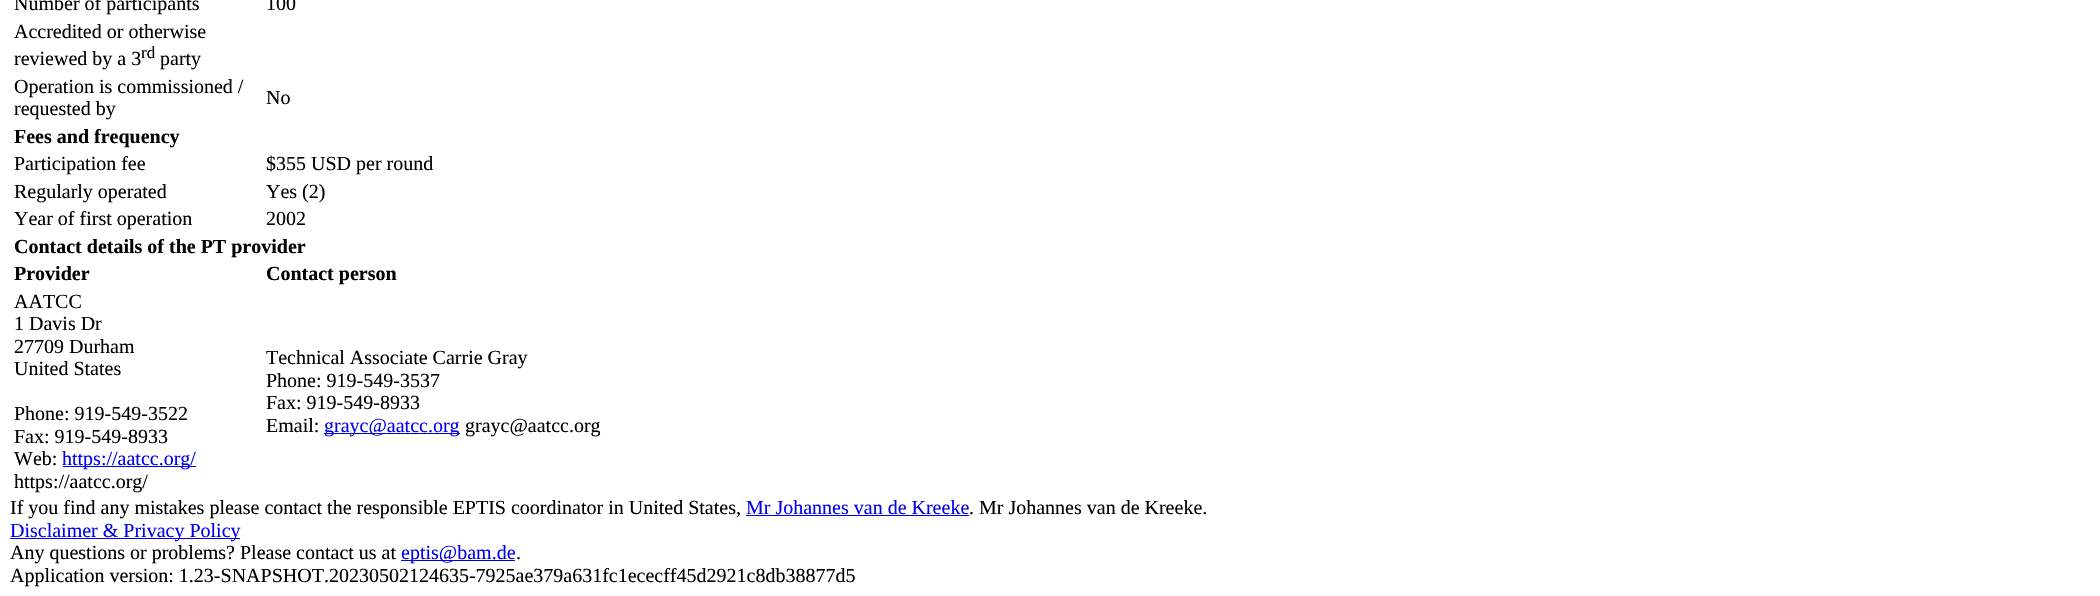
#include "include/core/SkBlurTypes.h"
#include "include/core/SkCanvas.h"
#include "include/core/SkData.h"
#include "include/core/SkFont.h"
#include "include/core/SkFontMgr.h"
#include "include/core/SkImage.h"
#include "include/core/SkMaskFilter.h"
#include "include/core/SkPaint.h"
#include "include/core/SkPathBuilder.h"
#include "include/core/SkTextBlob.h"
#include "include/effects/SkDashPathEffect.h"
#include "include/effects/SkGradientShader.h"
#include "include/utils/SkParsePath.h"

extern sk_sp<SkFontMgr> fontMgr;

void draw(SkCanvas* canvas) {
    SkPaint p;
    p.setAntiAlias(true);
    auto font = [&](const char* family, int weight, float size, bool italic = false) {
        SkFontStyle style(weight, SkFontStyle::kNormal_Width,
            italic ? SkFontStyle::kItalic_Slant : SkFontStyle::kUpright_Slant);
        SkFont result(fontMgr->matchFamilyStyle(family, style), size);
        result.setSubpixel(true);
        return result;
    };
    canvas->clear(0xFFFFFFFF);
    auto font1 = font("Liberation Serif", 400, 20);
    p.setColor(0xFF000000);
    {
        const struct { const char* s; float x, y; } items[] = {
            {"Number of participants", 14, 10},
            {"100", 266, 10},
            {"Accredited or otherwise", 14, 38},
            {"reviewed by a 3", 14, 65},
        };
        for (auto [s, x, y] : items) {
            canvas->drawString(s, x, y, font1, p);
        }
    }
    auto font2 = font("Liberation Serif", 400, 17);
    canvas->drawString("rd", 141, 58, font2, p);
    {
        const struct { const char* s; float x, y; } items[] = {
            {"party", 160, 65},
            {"Operation is commissioned /", 14, 93},
            {"requested by", 14, 115},
            {"No", 266, 104},
        };
        for (auto [s, x, y] : items) {
            canvas->drawString(s, x, y, font1, p);
        }
    }
    auto font3 = font("Liberation Serif", 700, 20);
    canvas->drawString("Fees and frequency", 14, 143, font3, p);
    {
        const struct { const char* s; float x, y; } items[] = {
            {"Participation fee", 14, 170},
            {"$355 USD per round", 266, 170},
            {"Regularly operated", 14, 198},
            {"Yes (2)", 266, 198},
            {"Year of first operation", 14, 225},
            {"2002", 266, 225},
        };
        for (auto [s, x, y] : items) {
            canvas->drawString(s, x, y, font1, p);
        }
    }
    {
        const struct { const char* s; float x, y; } items[] = {
            {"Contact details of the PT provider", 14, 253},
            {"Provider", 14, 280},
            {"Contact person", 266, 280},
        };
        for (auto [s, x, y] : items) {
            canvas->drawString(s, x, y, font3, p);
        }
    }
    {
        const struct { const char* s; float x, y; } items[] = {
            {"AATCC", 14, 308},
            {"1 Davis Dr", 14, 330},
            {"27709 Durham", 14, 353},
            {"United States", 14, 375},
            {"Phone: 919-549-3522", 14, 420},
            {"Fax: 919-549-8933", 14, 443},
            {"Web:", 14, 465},
        };
        for (auto [s, x, y] : items) {
            canvas->drawString(s, x, y, font1, p);
        }
    }
    p.setColor(0xFF0000EE);
    canvas->drawRect(SkRect::MakeLTRB(63, 466, 196, 467), p);
    canvas->drawString("https://aatcc.org/", 62, 465, font1, p);
    p.setColor(0xFF000000);
    {
        const struct { const char* s; float x, y; } items[] = {
            {"https://aatcc.org/", 14, 488},
            {"Technical Associate Carrie Gray", 266, 364},
            {"Phone: 919-549-3537", 266, 387},
            {"Fax: 919-549-8933", 266, 409},
            {"Email:", 266, 432},
        };
        for (auto [s, x, y] : items) {
            canvas->drawString(s, x, y, font1, p);
        }
    }
    p.setColor(0xFF0000EE);
    canvas->drawRect(SkRect::MakeLTRB(324, 433, 460, 434), p);
    canvas->drawString("grayc@aatcc.org", 324, 432, font1, p);
    p.setColor(0xFF000000);
    canvas->drawString("grayc@aatcc.org", 465, 432, font1, p);
    canvas->drawString("If you find any mistakes please contact the responsible EPTIS coordinator in United States,", 10, 514, font1, p);
    p.setColor(0xFF0000EE);
    canvas->drawString("Mr Johannes van de Kreeke", 746, 514, font1, p);
    canvas->drawRect(SkRect::MakeLTRB(746, 515, 969, 516), p);
    p.setColor(0xFF000000);
    canvas->drawString(". Mr Johannes van de Kreeke.", 969, 514, font1, p);
    p.setColor(0xFF0000EE);
    canvas->drawRect(SkRect::MakeLTRB(10, 538, 240, 539), p);
    canvas->drawString("Disclaimer & Privacy Policy", 10, 537, font1, p);
    p.setColor(0xFF000000);
    canvas->drawString("Any questions or problems? Please contact us at", 10, 559, font1, p);
    p.setColor(0xFF0000EE);
    canvas->drawRect(SkRect::MakeLTRB(401, 560, 515, 561), p);
    canvas->drawString("eptis@bam.de", 401, 559, font1, p);
    p.setColor(0xFF000000);
    canvas->drawString(".", 516, 559, font1, p);
    canvas->drawString("Application version: 1.23-SNAPSHOT.20230502124635-7925ae379a631fc1ececff45d2921c8db38877d5", 10, 582, font1, p);
}
